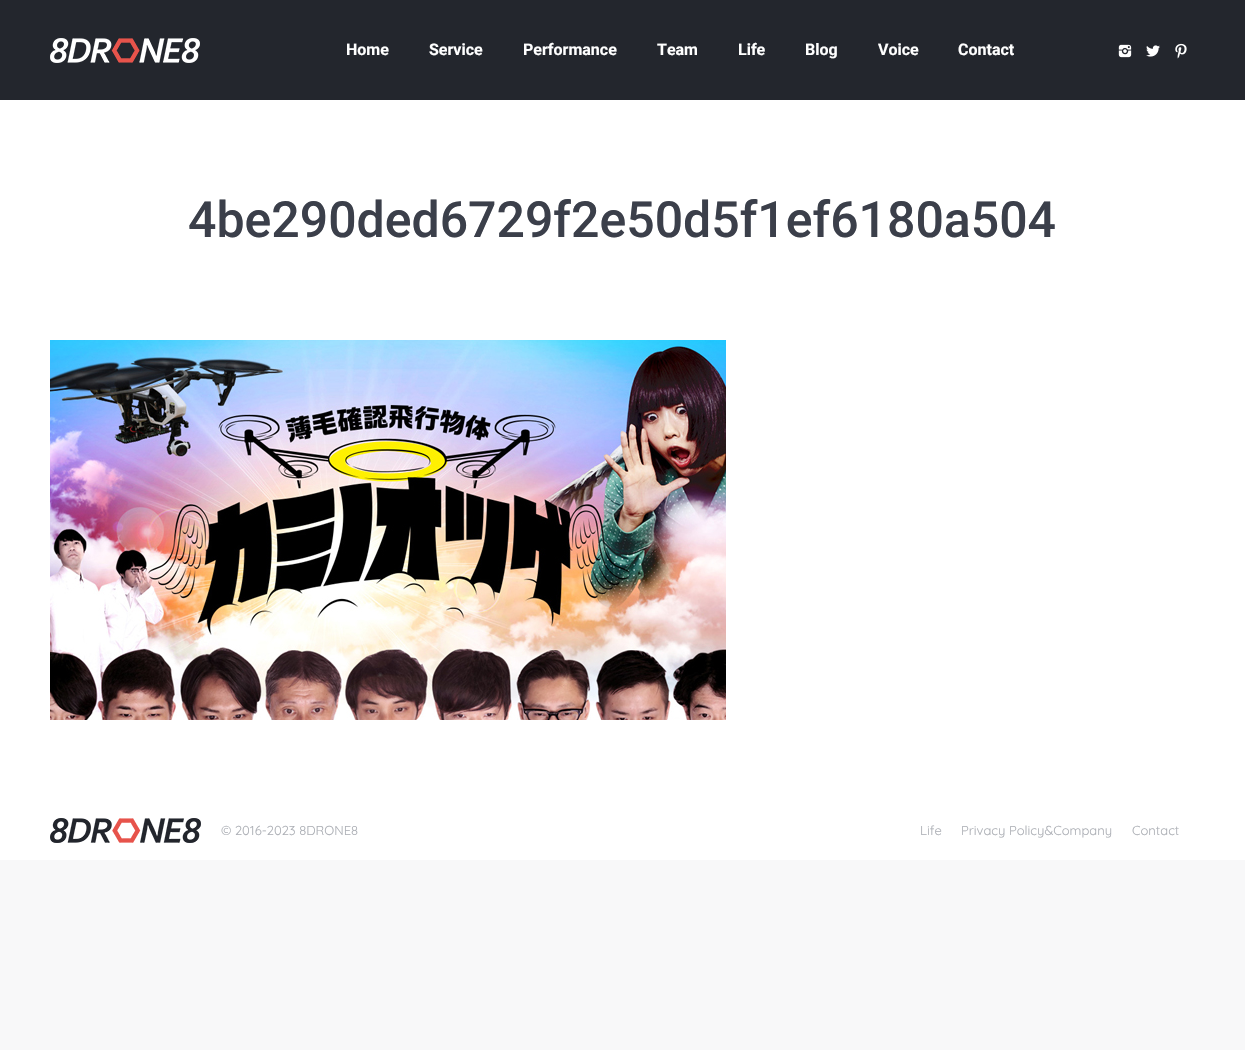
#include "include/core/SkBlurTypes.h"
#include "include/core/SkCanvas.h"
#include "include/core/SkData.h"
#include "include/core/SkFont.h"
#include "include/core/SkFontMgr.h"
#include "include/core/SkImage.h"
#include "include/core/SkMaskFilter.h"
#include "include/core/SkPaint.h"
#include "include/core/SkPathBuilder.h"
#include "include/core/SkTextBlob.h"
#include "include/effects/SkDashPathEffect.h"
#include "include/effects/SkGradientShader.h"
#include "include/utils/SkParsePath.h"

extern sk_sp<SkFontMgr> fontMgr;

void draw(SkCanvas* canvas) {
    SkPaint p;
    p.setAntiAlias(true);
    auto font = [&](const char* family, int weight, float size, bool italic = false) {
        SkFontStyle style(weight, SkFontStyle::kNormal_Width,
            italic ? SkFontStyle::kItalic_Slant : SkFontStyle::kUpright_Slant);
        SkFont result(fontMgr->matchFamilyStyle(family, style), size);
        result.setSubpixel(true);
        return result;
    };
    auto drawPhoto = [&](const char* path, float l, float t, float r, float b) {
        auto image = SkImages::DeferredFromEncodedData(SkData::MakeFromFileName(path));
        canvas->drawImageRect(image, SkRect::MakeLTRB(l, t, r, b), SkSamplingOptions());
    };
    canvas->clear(0xFFF8F8F9);
    p.setColor(0xFFFFFFFF);
    canvas->drawRect(SkRect::MakeLTRB(0, 100, 1245, 860), p);
    p.setColor(0xFF23262D);
    canvas->drawRect(SkRect::MakeLTRB(0, 0, 1245, 100), p);
    drawPhoto("media/1.png", 50, 38, 200, 63);
    auto font1 = font("Roboto", 700, 16);
    p.setColor(0xFFFFFFFF);
    {
        const struct { const char* s; float x, y; } items[] = {
            {"Home", 346, 55},
            {"Service", 429, 55},
            {"Performance", 523, 55},
            {"Team", 657, 55},
            {"Life", 738, 55},
            {"Blog", 805, 55},
            {"Voice", 878, 55},
            {"Contact", 958, 55},
        };
        for (auto [s, x, y] : items) {
            canvas->drawString(s, x, y, font1, p);
        }
    }
    drawPhoto("media/2.png", 1118, 44, 1132, 58);
    drawPhoto("media/3.png", 1146, 45, 1160, 57);
    drawPhoto("media/4.png", 1175, 43, 1187, 59);
    auto font2 = font("Roboto", 500, 50);
    p.setColor(0xFF3B3F4A);
    canvas->drawString("4be290ded6729f2e50d5f1ef6180a504", 188, 237, font2, p);
    drawPhoto("media/5.png", 50, 340, 726, 720);
    drawPhoto("media/6.png", 50, 818, 201, 843);
    auto font3 = font("Quicksand", 400, 13);
    p.setColor(0xFFADB0B6);
    {
        const struct { const char* s; float x, y; } items[] = {
            {"© 2016-2023 8DRONE8", 221, 835},
            {"Life", 920, 835},
            {"Privacy Policy&Company", 961, 835},
            {"Contact", 1132, 835},
        };
        for (auto [s, x, y] : items) {
            canvas->drawString(s, x, y, font3, p);
        }
    }
}
